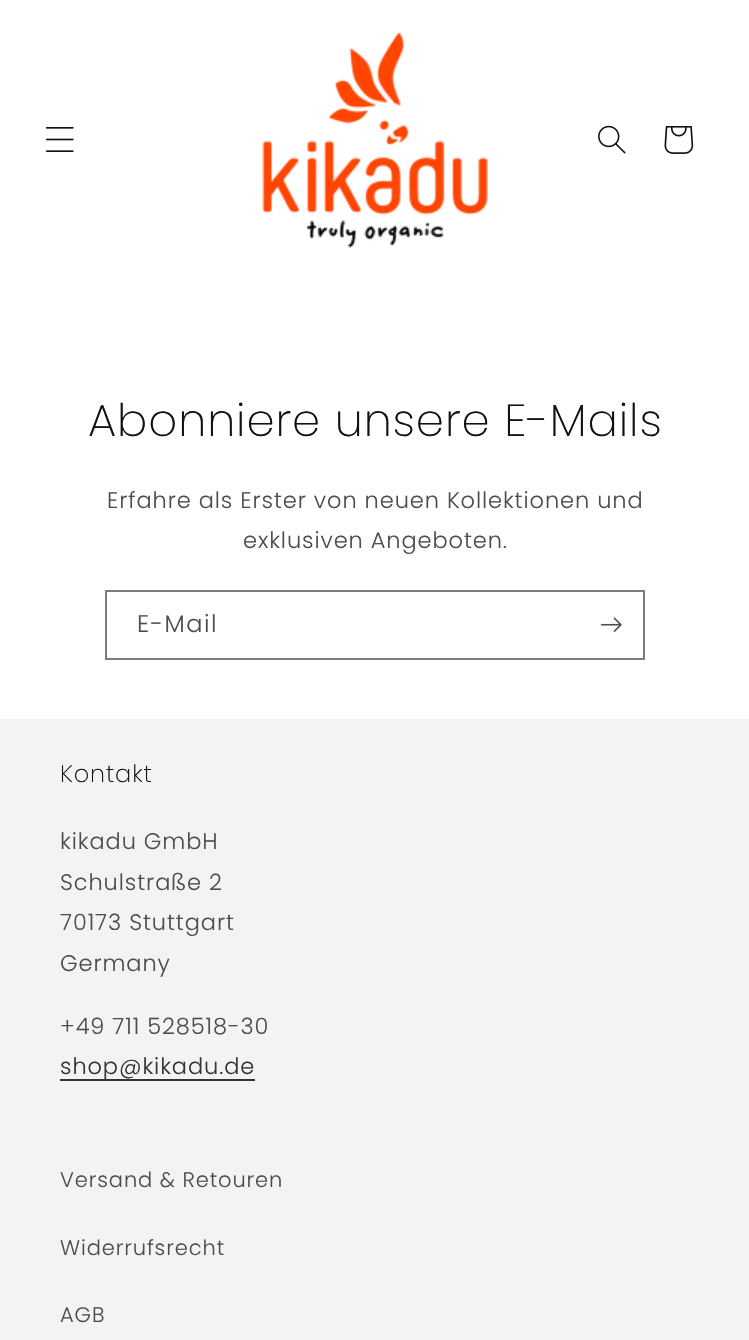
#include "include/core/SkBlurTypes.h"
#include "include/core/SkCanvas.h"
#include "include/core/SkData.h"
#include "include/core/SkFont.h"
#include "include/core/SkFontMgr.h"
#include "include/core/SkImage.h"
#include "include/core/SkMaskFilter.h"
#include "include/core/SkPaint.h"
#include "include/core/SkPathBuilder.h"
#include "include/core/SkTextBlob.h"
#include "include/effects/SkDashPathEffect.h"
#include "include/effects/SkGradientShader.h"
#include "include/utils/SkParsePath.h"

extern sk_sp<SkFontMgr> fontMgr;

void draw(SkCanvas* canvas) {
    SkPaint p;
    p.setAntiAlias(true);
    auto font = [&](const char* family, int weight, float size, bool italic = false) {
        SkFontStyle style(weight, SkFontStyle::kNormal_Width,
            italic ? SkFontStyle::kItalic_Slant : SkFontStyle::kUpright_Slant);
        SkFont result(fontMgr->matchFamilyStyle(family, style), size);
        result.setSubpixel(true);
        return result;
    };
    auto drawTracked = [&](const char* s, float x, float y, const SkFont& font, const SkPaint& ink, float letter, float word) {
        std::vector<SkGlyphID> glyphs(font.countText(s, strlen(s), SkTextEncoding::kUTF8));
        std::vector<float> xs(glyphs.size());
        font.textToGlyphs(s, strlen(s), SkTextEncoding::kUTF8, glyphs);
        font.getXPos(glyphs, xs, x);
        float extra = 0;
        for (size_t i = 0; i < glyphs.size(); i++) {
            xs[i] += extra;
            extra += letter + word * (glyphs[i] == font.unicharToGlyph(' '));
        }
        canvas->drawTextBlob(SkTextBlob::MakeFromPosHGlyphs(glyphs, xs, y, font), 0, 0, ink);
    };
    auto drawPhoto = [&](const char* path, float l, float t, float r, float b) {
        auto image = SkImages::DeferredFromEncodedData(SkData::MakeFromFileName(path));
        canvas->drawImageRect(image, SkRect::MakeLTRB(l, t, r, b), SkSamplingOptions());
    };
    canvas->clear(0xFFFFFFFF);
    drawPhoto("media/1.png", 45, 127, 74, 152);
    drawPhoto("media/2.png", 262, 32, 488, 248);
    drawPhoto("media/3.png", 598, 125, 626, 154);
    drawPhoto("media/4.png", 664, 126, 694, 154);
    auto font1 = font("Poppins", 300, 45);
    p.setColor(0xFF121212);
    drawTracked("Abonniere unsere E-Mails", 88, 436, font1, p, 0.9f, 0);
    auto font2 = font("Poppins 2", 300, 22.5f);
    p.setColor(0xFF4D4D4D);
    drawTracked("Erfahre als Erster von neuen Kollektionen und", 107, 508, font2, p, 0.9f, 0);
    drawTracked("exklusiven Angeboten.", 243, 548, font2, p, 0.9f, 0);
    p.setStyle(SkPaint::kStroke_Style);
    p.setStrokeWidth(2);
    p.setColor(0xFF7D7D7D);
    canvas->drawRect(SkRect::MakeLTRB(106, 591, 644, 659), p);
    auto font3 = font("Poppins 2", 300, 24);
    p.setStyle(SkPaint::kFill_Style);
    p.setColor(0xFF4D4D4D);
    drawTracked("E-Mail", 137, 632, font3, p, 1.5f, 0);
    drawPhoto("media/5.png", 600, 617, 622, 632);
    p.setColor(0xFFF3F3F3);
    canvas->drawRect(SkRect::MakeLTRB(0, 719, 749, 1340), p);
    auto font4 = font("Poppins", 300, 24);
    p.setColor(0xFF121212);
    drawTracked("Kontakt", 60, 782, font4, p, 0.9f, 0);
    p.setColor(0xFF4D4D4D);
    {
        const struct { const char* s; float x, y; } items[] = {
            {"kikadu GmbH", 60, 849},
            {"Schulstraße 2", 60, 890},
            {"70173 Stuttgart", 60, 930},
            {"Germany", 60, 971},
            {"+49 711 528518-30", 60, 1034},
        };
        for (auto [s, x, y] : items) {
            drawTracked(s, x, y, font2, p, 0.9f, 0);
        }
    }
    p.setColor(0xFF343434);
    canvas->drawRect(SkRect::MakeLTRB(60, 1079, 255, 1081), p);
    drawTracked("shop@kikadu.de", 60, 1074, font2, p, 0.9f, 0);
    auto font5 = font("Poppins 2", 300, 21);
    p.setColor(0xFF4D4D4D);
    {
        const struct { const char* s; float x, y; } items[] = {
            {"Versand & Retouren", 60, 1187},
            {"Widerrufsrecht", 60, 1255},
            {"AGB", 60, 1322},
        };
        for (auto [s, x, y] : items) {
            drawTracked(s, x, y, font5, p, 0.9f, 0);
        }
    }
}
